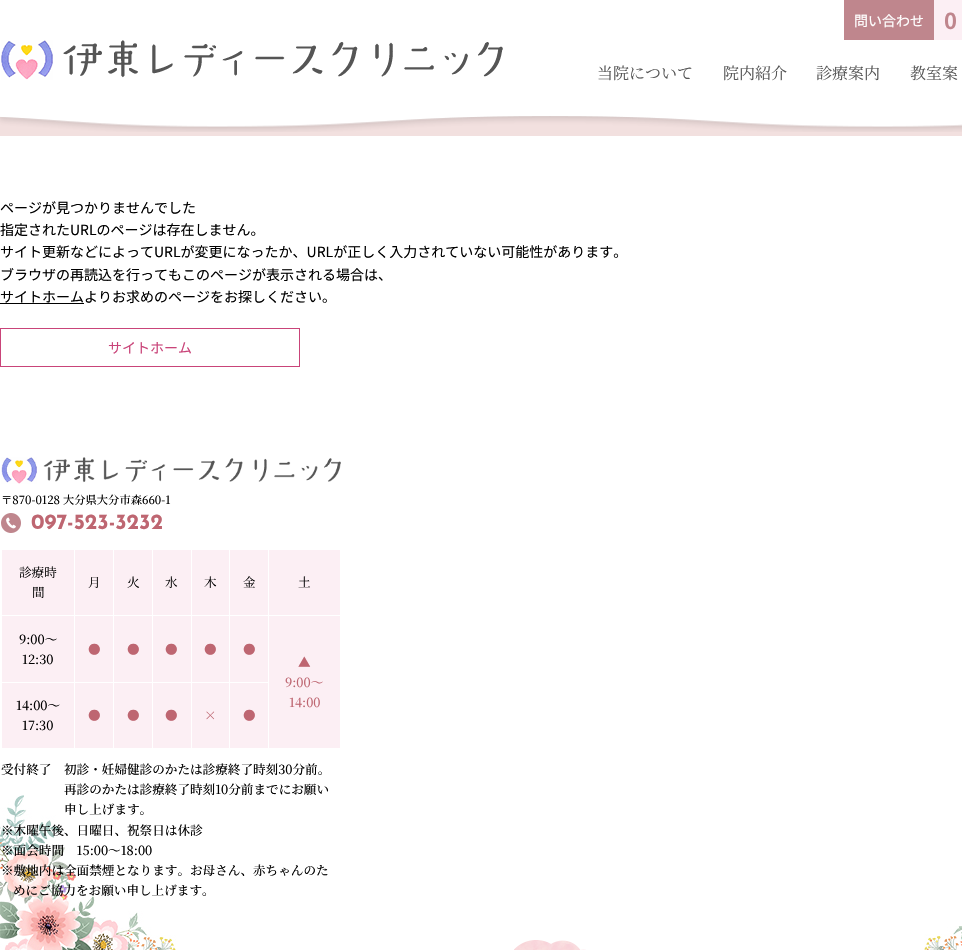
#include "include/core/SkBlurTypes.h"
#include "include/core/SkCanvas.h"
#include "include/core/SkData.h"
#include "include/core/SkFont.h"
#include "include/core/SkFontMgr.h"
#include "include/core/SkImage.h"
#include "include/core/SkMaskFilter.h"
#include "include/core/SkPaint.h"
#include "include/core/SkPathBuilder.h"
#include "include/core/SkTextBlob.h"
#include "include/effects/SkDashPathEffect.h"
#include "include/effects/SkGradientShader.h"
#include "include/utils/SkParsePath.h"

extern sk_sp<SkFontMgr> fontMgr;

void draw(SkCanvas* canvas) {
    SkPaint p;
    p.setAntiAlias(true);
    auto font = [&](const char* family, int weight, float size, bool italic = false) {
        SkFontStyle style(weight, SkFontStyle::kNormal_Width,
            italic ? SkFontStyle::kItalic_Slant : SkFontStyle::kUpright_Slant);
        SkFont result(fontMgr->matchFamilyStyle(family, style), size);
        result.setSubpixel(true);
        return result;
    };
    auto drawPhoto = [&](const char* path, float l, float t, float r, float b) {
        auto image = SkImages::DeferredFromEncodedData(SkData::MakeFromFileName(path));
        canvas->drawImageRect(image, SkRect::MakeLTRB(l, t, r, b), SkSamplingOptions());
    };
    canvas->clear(0xFFFFFFFF);
    p.setColor(0xFFF2E0DF);
    canvas->drawRect(SkRect::MakeLTRB(0, 116, 962, 136), p);
    drawPhoto("media/1.png", 0, 0, 962, 132);
    p.setColor(0xFFBF868D);
    canvas->drawRect(SkRect::MakeLTRB(844, 0, 934, 40), p);
    auto font1 = font("Noto Sans JP", 400, 14);
    p.setColor(0xFFFFFFFF);
    canvas->drawString("問い合わせ", 854, 26, font1, p);
    p.setColor(0xFFFCEFF4);
    canvas->drawRect(SkRect::MakeLTRB(934, 0, 962, 40), p);
    auto font2 = font("Noto Sans JP", 700, 22);
    p.setColor(0xFFBF868D);
    canvas->drawString("0", 944, 29, font2, p);
    drawPhoto("media/2.png", 1, 40, 503, 80);
    auto font3 = font("Noto Serif CJK JP", 400, 16);
    p.setColor(0xFF555555);
    {
        const struct { const char* s; float x, y; } items[] = {
            {"当院について", 597, 79},
            {"院内紹介", 723, 79},
            {"診療案内", 816, 79},
            {"教室案", 910, 79},
        };
        for (auto [s, x, y] : items) {
            canvas->drawString(s, x, y, font3, p);
        }
    }
    p.setColor(0xFF000000);
    {
        const struct { const char* s; float x, y; } items[] = {
            {"ページが見つかりませんでした", 0, 213},
            {"指定されたURLのページは存在しません。", 0, 235},
            {"サイト更新などによってURLが変更になったか、URLが正しく入力されていない可能性があります。", 0, 257},
            {"ブラウザの再読込を行ってもこのページが表示される場合は、", 0, 280},
        };
        for (auto [s, x, y] : items) {
            canvas->drawString(s, x, y, font1, p);
        }
    }
    canvas->drawRect(SkRect::MakeLTRB(0, 303, 84, 304), p);
    canvas->drawString("サイトホームよりお求めのページをお探しください。", 0, 302, font1, p);
    p.setStyle(SkPaint::kStroke_Style);
    p.setStrokeWidth(1);
    p.setColor(0xFFC94479);
    canvas->drawRect(SkRect::MakeLTRB(0.5f, 328.5f, 299.5f, 366.5f), p);
    p.setStyle(SkPaint::kFill_Style);
    canvas->drawString("サイトホーム", 108, 353, font1, p);
    drawPhoto("media/3.png", 0, 795, 176, 950);
    drawPhoto("media/4.png", 924, 926, 962, 950);
    drawPhoto("media/5.png", 1, 457, 341, 484);
    auto font4 = font("Noto Serif CJK JP", 500, 11.3f);
    p.setColor(0xFF000000);
    canvas->drawString("〒870-0128 大分県大分市森660-1", 1, 504, font4, p);
    drawPhoto("media/6.png", 1, 513, 21, 533);
    auto font5 = font("Josefin Sans", 100, 21.5f);
    p.setColor(0xFFBE6671);
    canvas->drawString("097-523-3232", 31, 529, font5, p);
    {
        const struct { float l, t, r, b; SkColor color; } items[] = {
            {2, 550, 340, 748, 0xFFFCEFF4},
            {268, 615, 341, 616, 0xFFFFFFFF},
            {229, 682, 269, 683, 0xFFFFFFFF},
            {268, 615, 269, 749, 0xFFFFFFFF},
            {229, 615, 269, 616, 0xFFFFFFFF},
            {229, 682, 230, 749, 0xFFFFFFFF},
            {191, 682, 230, 683, 0xFFFFFFFF},
            {229, 615, 230, 683, 0xFFFFFFFF},
            {191, 615, 230, 616, 0xFFFFFFFF},
            {191, 682, 192, 749, 0xFFFFFFFF},
            {152, 682, 192, 683, 0xFFFFFFFF},
            {191, 615, 192, 683, 0xFFFFFFFF},
            {152, 615, 192, 616, 0xFFFFFFFF},
            {152, 682, 153, 749, 0xFFFFFFFF},
            {113, 682, 153, 683, 0xFFFFFFFF},
            {152, 615, 153, 683, 0xFFFFFFFF},
            {113, 615, 153, 616, 0xFFFFFFFF},
            {113, 682, 114, 749, 0xFFFFFFFF},
            {74, 682, 114, 683, 0xFFFFFFFF},
            {113, 615, 114, 683, 0xFFFFFFFF},
            {74, 615, 114, 616, 0xFFFFFFFF},
            {74, 682, 75, 749, 0xFFFFFFFF},
            {1, 682, 75, 683, 0xFFFFFFFF},
            {74, 615, 75, 683, 0xFFFFFFFF},
            {1, 615, 75, 616, 0xFFFFFFFF},
            {74, 549, 75, 616, 0xFFFFFFFF},
        };
        for (auto [l, t, r, b, color] : items) {
            p.setColor(color);
            canvas->drawRect(SkRect::MakeLTRB(l, t, r, b), p);
        }
    }
    auto font6 = font("Noto Serif CJK JP", 400, 12.6f);
    p.setColor(0xFF000000);
    canvas->drawString("診療時", 19, 577, font6, p);
    canvas->drawString("間", 32, 597, font6, p);
    p.setColor(0xFFFFFFFF);
    canvas->drawRect(SkRect::MakeLTRB(113, 549, 114, 616), p);
    p.setColor(0xFF000000);
    canvas->drawString("月", 88, 587, font6, p);
    p.setColor(0xFFFFFFFF);
    canvas->drawRect(SkRect::MakeLTRB(152, 549, 153, 616), p);
    p.setColor(0xFF000000);
    canvas->drawString("火", 127, 587, font6, p);
    p.setColor(0xFFFFFFFF);
    canvas->drawRect(SkRect::MakeLTRB(191, 549, 192, 616), p);
    p.setColor(0xFF000000);
    canvas->drawString("水", 165, 587, font6, p);
    p.setColor(0xFFFFFFFF);
    canvas->drawRect(SkRect::MakeLTRB(229, 549, 230, 616), p);
    p.setColor(0xFF000000);
    canvas->drawString("木", 204, 587, font6, p);
    p.setColor(0xFFFFFFFF);
    canvas->drawRect(SkRect::MakeLTRB(268, 549, 269, 616), p);
    p.setColor(0xFF000000);
    canvas->drawString("金", 243, 587, font6, p);
    canvas->drawString("土", 298, 587, font6, p);
    auto font7 = font("Noto Serif CJK JP", 500, 12.6f);
    canvas->drawString("9:00～", 19, 644, font7, p);
    canvas->drawString("12:30", 22, 664, font7, p);
    p.setColor(0xFFBE6671);
    {
        const struct { const char* s; float x, y; } items[] = {
            {"●", 88, 654},
            {"●", 127, 654},
            {"●", 165, 654},
            {"●", 204, 654},
            {"●", 243, 654},
            {"▲", 298, 667},
            {"9:00～", 285, 687},
            {"14:00", 289, 707},
        };
        for (auto [s, x, y] : items) {
            canvas->drawString(s, x, y, font7, p);
        }
    }
    p.setColor(0xFF000000);
    canvas->drawString("14:00～", 16, 710, font7, p);
    canvas->drawString("17:30", 22, 730, font7, p);
    p.setColor(0xFFBE6671);
    {
        const struct { const char* s; float x, y; } items[] = {
            {"●", 88, 720},
            {"●", 127, 720},
            {"●", 165, 720},
            {"×", 204, 720},
            {"●", 243, 720},
        };
        for (auto [s, x, y] : items) {
            canvas->drawString(s, x, y, font7, p);
        }
    }
    p.setColor(0xFF000000);
    {
        const struct { const char* s; float x, y; } items[] = {
            {"受付終了　初診・妊婦健診のかたは診療終了時刻30分前。", 1, 774},
            {"再診のかたは診療終了時刻10分前までにお願い", 64, 794},
            {"申し上げます。", 64, 814},
            {"※木曜午後、日曜日、祝祭日は休診", 1, 835},
            {"※面会時間　15:00～18:00", 1, 855},
            {"※敷地内は全面禁煙となります。お母さん、赤ちゃんのた", 1, 875},
            {"めにご協力をお願い申し上げます。", 13, 895},
        };
        for (auto [s, x, y] : items) {
            canvas->drawString(s, x, y, font7, p);
        }
    }
    drawPhoto("media/7.png", 514, 940, 586, 950);
}
